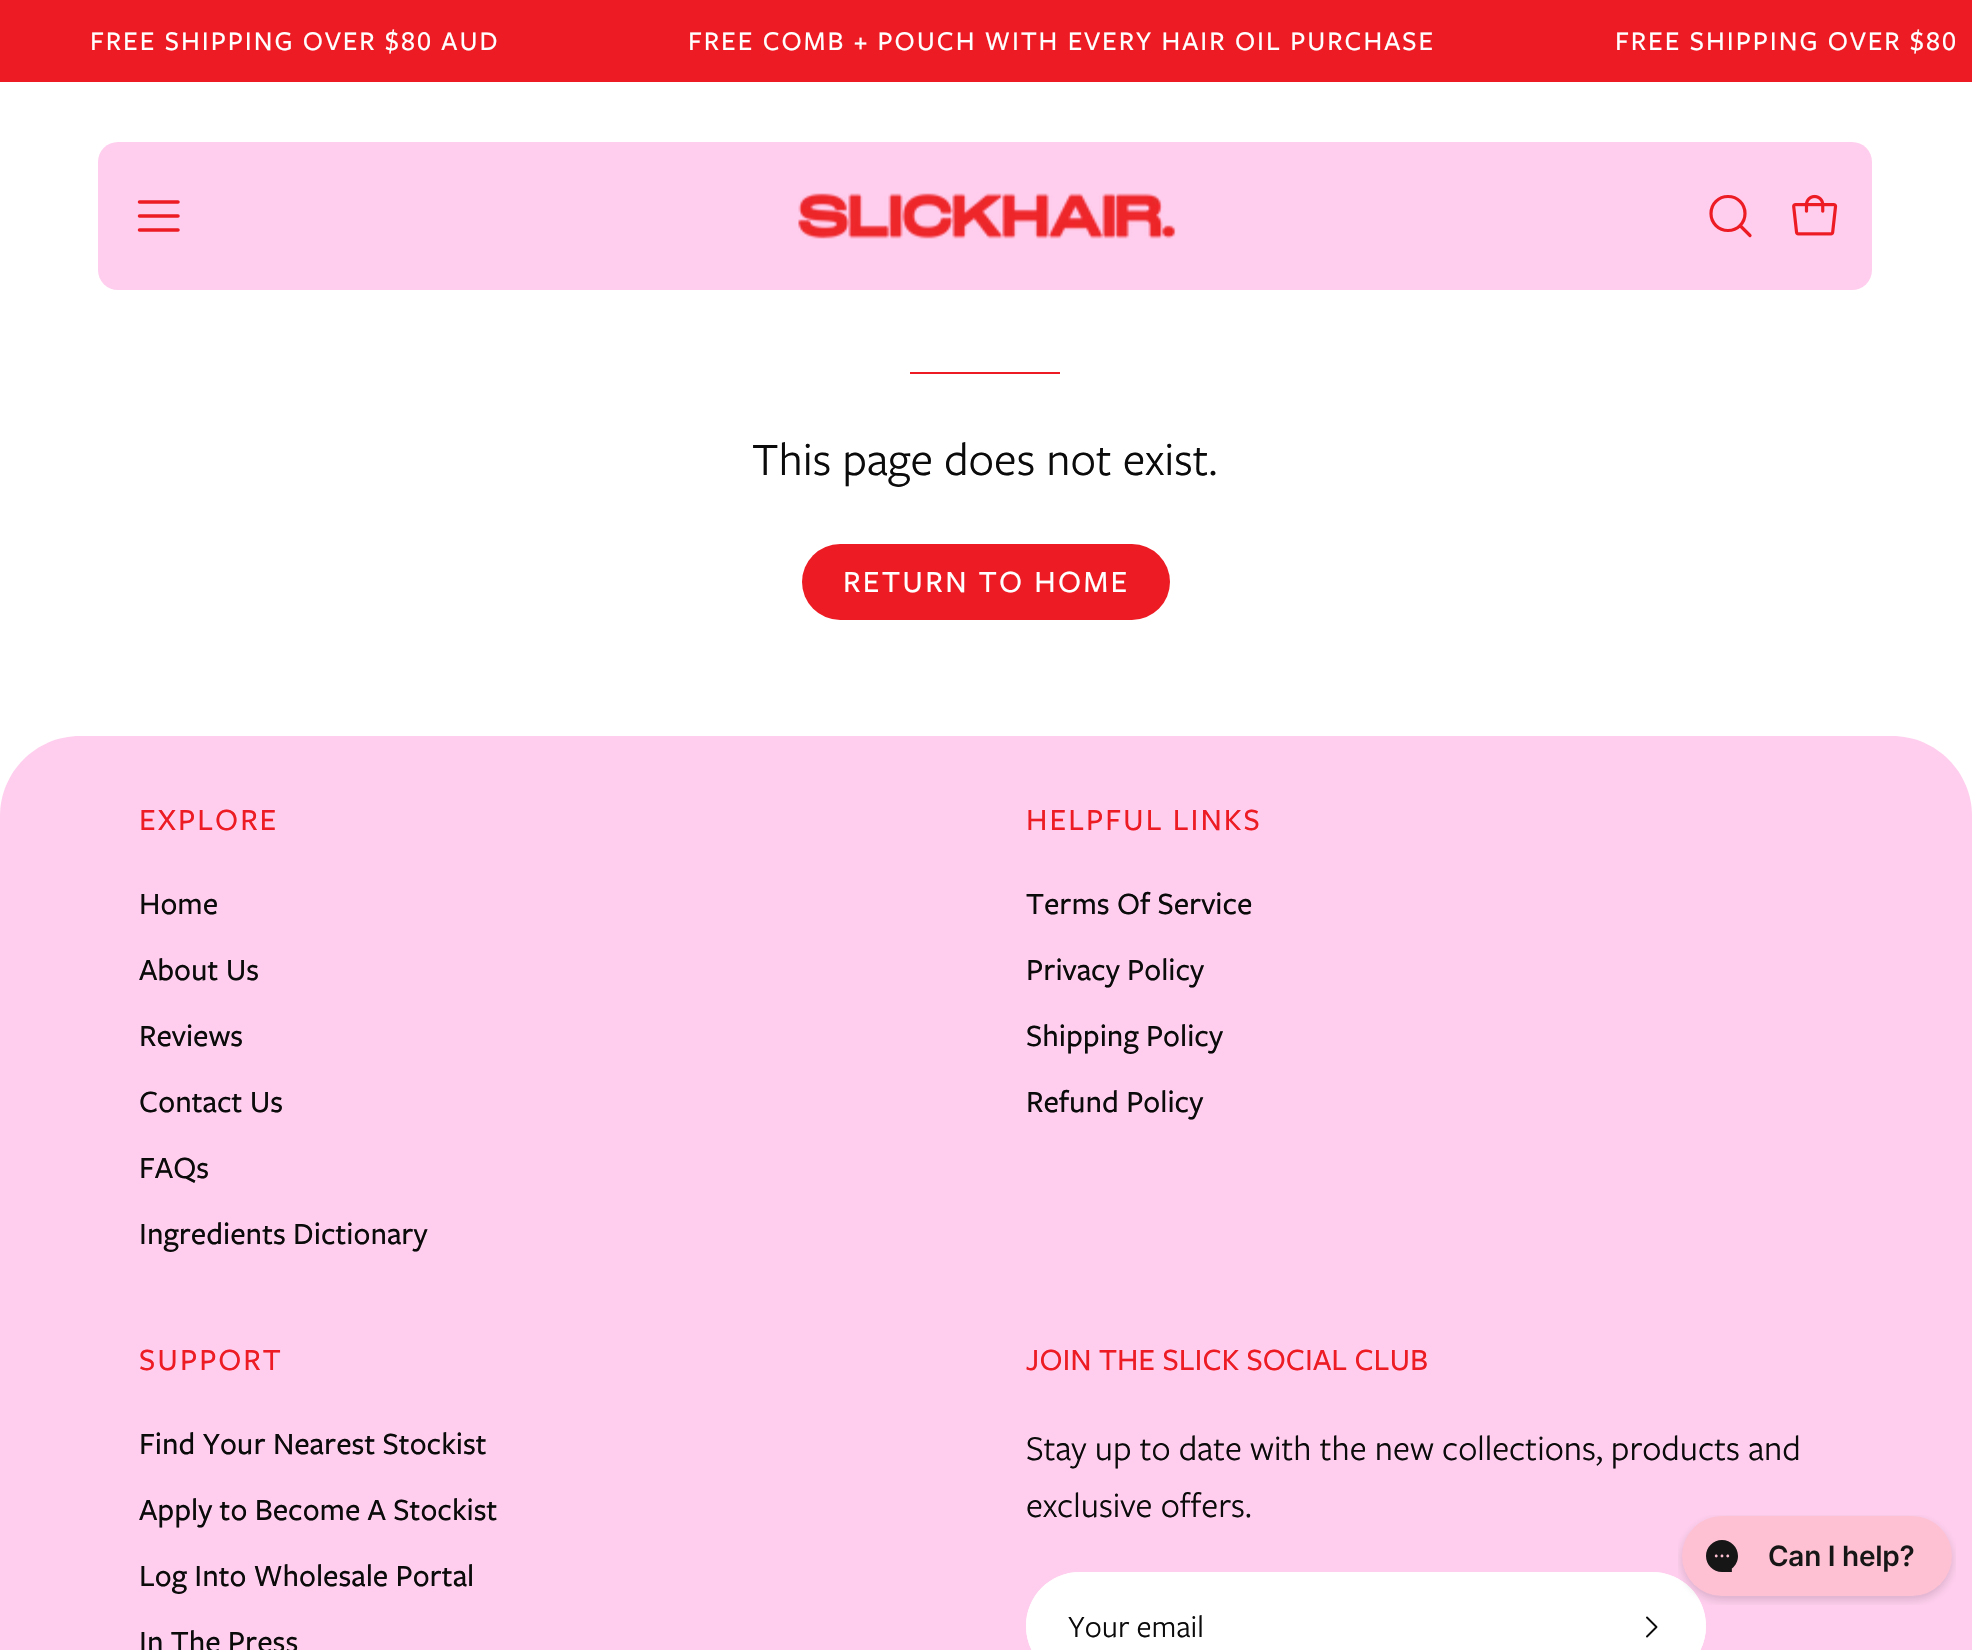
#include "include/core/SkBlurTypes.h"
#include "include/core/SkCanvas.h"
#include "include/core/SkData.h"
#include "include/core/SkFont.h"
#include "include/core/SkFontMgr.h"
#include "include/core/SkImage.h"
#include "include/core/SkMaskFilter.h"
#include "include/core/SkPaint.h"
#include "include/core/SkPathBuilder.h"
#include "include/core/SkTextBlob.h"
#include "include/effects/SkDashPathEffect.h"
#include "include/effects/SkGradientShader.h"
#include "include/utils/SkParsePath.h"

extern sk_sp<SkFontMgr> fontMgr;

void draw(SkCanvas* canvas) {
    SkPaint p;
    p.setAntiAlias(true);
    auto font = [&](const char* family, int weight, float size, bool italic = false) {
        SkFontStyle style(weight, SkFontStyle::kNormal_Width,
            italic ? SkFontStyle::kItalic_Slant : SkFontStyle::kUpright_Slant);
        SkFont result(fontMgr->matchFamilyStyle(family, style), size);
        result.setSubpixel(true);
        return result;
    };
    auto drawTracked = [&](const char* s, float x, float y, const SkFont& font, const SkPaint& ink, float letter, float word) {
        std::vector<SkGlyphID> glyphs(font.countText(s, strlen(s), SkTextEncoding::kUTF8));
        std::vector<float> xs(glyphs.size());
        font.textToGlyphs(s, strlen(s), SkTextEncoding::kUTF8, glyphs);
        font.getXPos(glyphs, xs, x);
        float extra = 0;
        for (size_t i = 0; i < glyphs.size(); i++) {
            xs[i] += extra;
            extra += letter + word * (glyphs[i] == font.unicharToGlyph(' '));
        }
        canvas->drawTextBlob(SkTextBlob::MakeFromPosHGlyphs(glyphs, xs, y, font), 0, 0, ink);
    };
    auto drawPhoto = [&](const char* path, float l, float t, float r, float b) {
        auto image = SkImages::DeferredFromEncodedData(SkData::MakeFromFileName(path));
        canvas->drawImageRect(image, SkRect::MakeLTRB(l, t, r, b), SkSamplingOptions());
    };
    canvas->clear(0xFFFFFFFF);
    p.setColor(0xFFED1C24);
    canvas->drawRect(SkRect::MakeLTRB(0, 0, 1972, 82), p);
    auto font1 = font("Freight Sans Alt", 500, 28);
    p.setColor(0xFFFFFFFF);
    drawTracked("FREE SHIPPING OVER $80 AUD", 90, 50, font1, p, 2, 0);
    auto font2 = font("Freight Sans", 500, 28);
    drawTracked("FREE COMB + POUCH WITH EVERY HAIR OIL PURCHASE", 688, 50, font2, p, 2, 0);
    drawTracked("FREE SHIPPING OVER $80", 1615, 50, font1, p, 2, 0);
    p.setColor(0xFFFFCEEE);
    canvas->drawRoundRect(SkRect::MakeLTRB(98, 142, 1872, 290), 20, 20, p);
    p.setStyle(SkPaint::kStroke_Style);
    p.setStrokeWidth(3.5f);
    p.setStrokeCap(SkPaint::kRound_Cap);
    p.setStrokeJoin(SkPaint::kRound_Join);
    p.setColor(0xFFED1C24);
    canvas->drawPath(SkPathBuilder().moveTo(139.5f, 216).lineTo(178, 216).moveTo(139.5f, 202).lineTo(178, 202).moveTo(139.5f, 230).lineTo(178, 230).detach(), p);
    drawPhoto("media/1.png", 798, 193, 1176, 239);
    p.setStrokeWidth(3.2f);
    canvas->drawPath(SkPathBuilder().moveTo(1728, 230.5f).cubicTo(1737.5f, 230.5f, 1745, 223, 1745, 213.5f).cubicTo(1745, 204, 1737.5f, 196.5f, 1728, 196.5f).cubicTo(1718.5f, 196.5f, 1711, 204, 1711, 213.5f).cubicTo(1711, 223, 1718.5f, 230.5f, 1728, 230.5f).close().moveTo(1740, 225.5f).lineTo(1750, 235.5f).detach(), p);
    drawPhoto("media/2.png", 1792, 194, 1838, 236);
    p.setStyle(SkPaint::kFill_Style);
    canvas->drawRect(SkRect::MakeLTRB(910, 372, 1060, 374), p);
    auto font3 = font("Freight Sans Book", 400, 48);
    p.setColor(0xFF0B0B0B);
    canvas->drawString("This page does not exist.", 752, 475, font3, p);
    p.setColor(0xFFED1C24);
    canvas->drawRoundRect(SkRect::MakeLTRB(802, 544, 1170, 620), 38, 38, p);
    auto font4 = font("Freight Sans", 500, 32);
    p.setColor(0xFFFFFFFF);
    drawTracked("RETURN TO HOME", 843, 592, font4, p, 2.4f, 0);
    p.setColor(0xFFFFCEEE);
    canvas->drawPath(SkPathBuilder().moveTo(80, 736).lineTo(1892, 736).cubicTo(1936, 736, 1972, 772, 1972, 816).lineTo(1972, 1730).lineTo(0, 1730).lineTo(0, 816).cubicTo(0, 772, 36, 736, 80, 736).close().detach(), p);
    p.setColor(0xFFED1C24);
    drawTracked("EXPLORE", 139, 830, font4, p, 2, 0);
    p.setColor(0xFF0B0B0B);
    {
        const struct { const char* s; float x, y; } items[] = {
            {"Home", 139, 914},
            {"About Us", 139, 980},
            {"Reviews", 139, 1046},
            {"Contact Us", 139, 1112},
            {"FAQs", 139, 1178},
            {"Ingredients Dictionary", 139, 1244},
        };
        for (auto [s, x, y] : items) {
            canvas->drawString(s, x, y, font4, p);
        }
    }
    p.setColor(0xFFED1C24);
    drawTracked("HELPFUL LINKS", 1026, 830, font4, p, 2, 0);
    p.setColor(0xFF0B0B0B);
    {
        const struct { const char* s; float x, y; } items[] = {
            {"Terms Of Service", 1026, 914},
            {"Privacy Policy", 1026, 980},
            {"Shipping Policy", 1026, 1046},
            {"Refund Policy", 1026, 1112},
        };
        for (auto [s, x, y] : items) {
            canvas->drawString(s, x, y, font4, p);
        }
    }
    p.setColor(0xFFED1C24);
    drawTracked("SUPPORT", 139, 1370, font4, p, 2, 0);
    p.setColor(0xFF0B0B0B);
    {
        const struct { const char* s; float x, y; } items[] = {
            {"Find Your Nearest Stockist", 139, 1454},
            {"Apply to Become A Stockist", 139, 1520},
            {"Log Into Wholesale Portal", 139, 1586},
            {"In The Press", 139, 1652},
        };
        for (auto [s, x, y] : items) {
            canvas->drawString(s, x, y, font4, p);
        }
    }
    p.setColor(0xFFED1C24);
    canvas->drawString("JOIN THE SLICK SOCIAL CLUB", 1026, 1370, font4, p);
    auto font5 = font("Freight Sans Book", 400, 36);
    p.setColor(0xFF0B0B0B);
    canvas->drawString("Stay up to date with the new collections, products and", 1026, 1460, font5, p);
    canvas->drawString("exclusive offers.", 1026, 1517, font5, p);
    p.setColor(0xFFFFFFFF);
    canvas->drawPath(SkPathBuilder().moveTo(1080, 1572).lineTo(1598, 1572).lineTo(1598, 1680).lineTo(1080, 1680).cubicTo(1050, 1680, 1026, 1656, 1026, 1626).cubicTo(1026, 1596, 1050, 1572, 1080, 1572).close().detach(), p);
    canvas->drawPath(SkPathBuilder(SkPathFillType::kEvenOdd).moveTo(1080, 1572).lineTo(1598, 1572).lineTo(1598, 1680).lineTo(1080, 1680).cubicTo(1050, 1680, 1026, 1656, 1026, 1626).cubicTo(1026, 1596, 1050, 1572, 1080, 1572).close().moveTo(1080, 1574).lineTo(1598, 1574).lineTo(1598, 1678).lineTo(1080, 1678).cubicTo(1051, 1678, 1028, 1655, 1028, 1626).cubicTo(1028, 1597, 1051, 1574, 1080, 1574).close().detach(), p);
    auto font6 = font("Freight Sans Book", 400, 32);
    p.setColor(0xFF0B0B0B);
    canvas->drawString("Your email", 1068, 1637, font6, p);
    p.setColor(0xFFFFFFFF);
    canvas->drawPath(SkPathBuilder().moveTo(1598, 1572).lineTo(1652, 1572).cubicTo(1682, 1572, 1706, 1596, 1706, 1626).cubicTo(1706, 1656, 1682, 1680, 1652, 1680).lineTo(1598, 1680).close().detach(), p);
    canvas->drawPath(SkPathBuilder(SkPathFillType::kEvenOdd).moveTo(1598, 1572).lineTo(1652, 1572).cubicTo(1682, 1572, 1706, 1596, 1706, 1626).cubicTo(1706, 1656, 1682, 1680, 1652, 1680).lineTo(1598, 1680).close().moveTo(1598, 1574).lineTo(1652, 1574).cubicTo(1681, 1574, 1704, 1597, 1704, 1626).cubicTo(1704, 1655, 1681, 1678, 1652, 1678).lineTo(1598, 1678).close().detach(), p);
    p.setStyle(SkPaint::kStroke_Style);
    p.setStrokeWidth(1.9f);
    p.setColor(0xFF0B0B0B);
    canvas->drawPath(SkPathBuilder().moveTo(1647, 1617.5f).lineTo(1656.5f, 1627).lineTo(1647, 1636.5f).detach(), p);
    drawPhoto("media/3.png", 1678, 1515, 1956, 1605);
}
